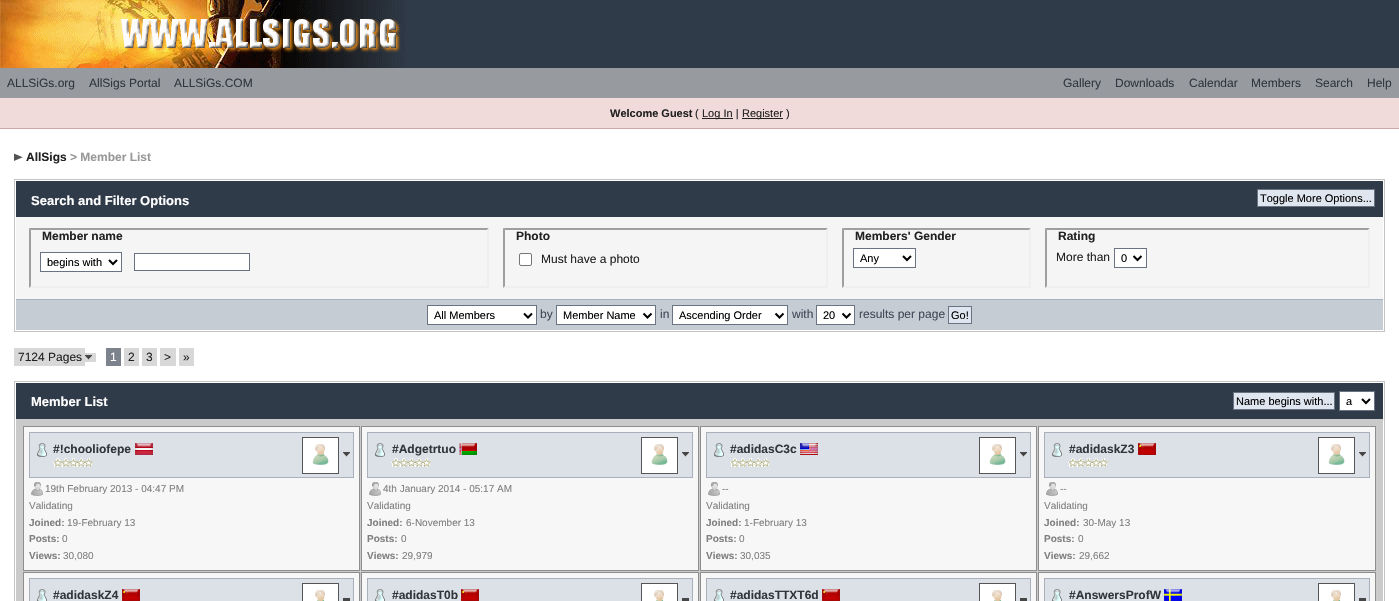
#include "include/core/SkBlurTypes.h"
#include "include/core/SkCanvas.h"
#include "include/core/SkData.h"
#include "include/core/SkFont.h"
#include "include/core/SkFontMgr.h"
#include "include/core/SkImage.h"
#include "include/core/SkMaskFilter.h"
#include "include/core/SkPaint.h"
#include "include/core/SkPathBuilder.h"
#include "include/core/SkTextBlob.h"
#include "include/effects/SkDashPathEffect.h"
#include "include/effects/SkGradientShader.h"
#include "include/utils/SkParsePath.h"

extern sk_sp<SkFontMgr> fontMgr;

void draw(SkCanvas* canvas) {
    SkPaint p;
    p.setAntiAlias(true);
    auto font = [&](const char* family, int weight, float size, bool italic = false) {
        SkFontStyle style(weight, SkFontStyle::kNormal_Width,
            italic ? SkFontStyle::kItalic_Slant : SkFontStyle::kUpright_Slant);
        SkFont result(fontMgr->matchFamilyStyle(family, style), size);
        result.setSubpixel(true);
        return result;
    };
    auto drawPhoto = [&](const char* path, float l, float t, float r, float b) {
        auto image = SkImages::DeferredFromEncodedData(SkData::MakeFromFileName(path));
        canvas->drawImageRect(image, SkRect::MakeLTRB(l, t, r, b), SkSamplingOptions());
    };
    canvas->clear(0xFFFFFFFF);
    p.setColor(0xFF303B4A);
    canvas->drawRect(SkRect::MakeLTRB(406, 0, 1399, 68), p);
    drawPhoto("media/1.png", 0, 0, 406, 68);
    p.setColor(0xFF979BA0);
    canvas->drawRect(SkRect::MakeLTRB(0, 68, 1399, 98), p);
    auto font1 = font("Liberation Sans", 400, 12);
    p.setColor(0xFF31363D);
    {
        const struct { const char* s; float x, y; } items[] = {
            {"ALLSiGs.org", 7, 87},
            {"AllSigs Portal", 89, 87},
            {"ALLSiGs.COM", 174, 87},
            {"Gallery", 1063, 87},
            {"Downloads", 1115, 87},
            {"Calendar", 1189, 87},
            {"Members", 1251, 87},
            {"Search", 1315, 87},
            {"Help", 1367, 87},
        };
        for (auto [s, x, y] : items) {
            canvas->drawString(s, x, y, font1, p);
        }
    }
    p.setColor(0xFFF1DADA);
    canvas->drawRect(SkRect::MakeLTRB(0, 98, 1399, 128), p);
    p.setColor(0xFFD1A9A9);
    canvas->drawRect(SkRect::MakeLTRB(0, 128, 1399, 129), p);
    auto font2 = font("Liberation Sans", 700, 11);
    p.setColor(0xFF222222);
    canvas->drawString("Welcome Guest", 610, 117, font2, p);
    auto font3 = font("Liberation Sans", 400, 11);
    canvas->drawString("(", 695, 117, font3, p);
    canvas->drawRect(SkRect::MakeLTRB(702, 118, 733, 119), p);
    canvas->drawString("Log In |", 702, 117, font3, p);
    canvas->drawRect(SkRect::MakeLTRB(742, 118, 783, 119), p);
    canvas->drawString("Register )", 742, 117, font3, p);
    drawPhoto("media/2.png", 14, 153, 23, 161);
    auto font4 = font("Liberation Sans", 700, 12);
    canvas->drawString("AllSigs", 26, 161, font4, p);
    p.setColor(0xFF999999);
    canvas->drawString("> Member List", 70, 161, font4, p);
    p.setStyle(SkPaint::kStroke_Style);
    p.setStrokeWidth(1);
    p.setColor(0xFFC4C4C4);
    canvas->drawRect(SkRect::MakeLTRB(14.5f, 179.5f, 1384.5f, 331.5f), p);
    p.setStyle(SkPaint::kFill_Style);
    p.setColor(0xFF303B4A);
    canvas->drawRect(SkRect::MakeLTRB(16, 181, 1383, 217), p);
    auto font5 = font("Liberation Sans", 700, 13);
    p.setColor(0xFFFFFFFF);
    canvas->drawString("Search and Filter Options", 31, 205, font5, p);
    p.setColor(0xFFDFE6EF);
    canvas->drawRect(SkRect::MakeLTRB(1257.5f, 189.5f, 1374.5f, 206.5f), p);
    p.setStyle(SkPaint::kStroke_Style);
    p.setColor(0xFF6A7382);
    canvas->drawRect(SkRect::MakeLTRB(1257.5f, 189.5f, 1374.5f, 206.5f), p);
    p.setStyle(SkPaint::kFill_Style);
    p.setColor(0xFF000000);
    canvas->drawString("Toggle More Options...", 1260, 202, font3, p);
    p.setColor(0xFFF5F5F5);
    canvas->drawRect(SkRect::MakeLTRB(16, 217, 1383, 299), p);
    p.setColor(0xFF9F9F9F);
    canvas->drawPath(SkPathBuilder().moveTo(29, 228).lineTo(489, 228).lineTo(487, 230).lineTo(31, 230).close().detach(), p);
    p.setColor(0xFFEFEFEF);
    canvas->drawPath(SkPathBuilder().moveTo(489, 228).lineTo(489, 288).lineTo(487, 286).lineTo(487, 230).close().detach(), p);
    canvas->drawPath(SkPathBuilder().moveTo(489, 288).lineTo(29, 288).lineTo(31, 286).lineTo(487, 286).close().detach(), p);
    p.setColor(0xFF9F9F9F);
    canvas->drawPath(SkPathBuilder().moveTo(29, 288).lineTo(29, 228).lineTo(31, 230).lineTo(31, 286).close().detach(), p);
    p.setColor(0xFF222222);
    canvas->drawString("Member name", 42, 240, font4, p);
    p.setColor(0xFFFFFFFF);
    canvas->drawRect(SkRect::MakeLTRB(40.5f, 252.5f, 121.5f, 271.5f), p);
    p.setStyle(SkPaint::kStroke_Style);
    p.setColor(0xFF6A7382);
    canvas->drawRect(SkRect::MakeLTRB(40.5f, 252.5f, 121.5f, 271.5f), p);
    p.setStrokeWidth(2);
    p.setColor(0xFF000000);
    canvas->drawPath(SkPathBuilder().moveTo(109, 260).lineTo(113, 264).lineTo(117, 260).detach(), p);
    p.setStyle(SkPaint::kFill_Style);
    canvas->drawString("begins with", 47, 266, font3, p);
    p.setColor(0xFFFFFFFF);
    canvas->drawRect(SkRect::MakeLTRB(134.5f, 253.5f, 249.5f, 270.5f), p);
    p.setStyle(SkPaint::kStroke_Style);
    p.setStrokeWidth(1);
    p.setColor(0xFF6A7382);
    canvas->drawRect(SkRect::MakeLTRB(134.5f, 253.5f, 249.5f, 270.5f), p);
    p.setStyle(SkPaint::kFill_Style);
    p.setColor(0xFF9F9F9F);
    canvas->drawPath(SkPathBuilder().moveTo(503, 228).lineTo(828, 228).lineTo(826, 230).lineTo(505, 230).close().detach(), p);
    p.setColor(0xFFEFEFEF);
    canvas->drawPath(SkPathBuilder().moveTo(828, 228).lineTo(828, 288).lineTo(826, 286).lineTo(826, 230).close().detach(), p);
    canvas->drawPath(SkPathBuilder().moveTo(828, 288).lineTo(503, 288).lineTo(505, 286).lineTo(826, 286).close().detach(), p);
    p.setColor(0xFF9F9F9F);
    canvas->drawPath(SkPathBuilder().moveTo(503, 288).lineTo(503, 228).lineTo(505, 230).lineTo(505, 286).close().detach(), p);
    p.setColor(0xFF222222);
    canvas->drawString("Photo", 516, 240, font4, p);
    p.setColor(0xFFFFFFFF);
    canvas->drawRoundRect(SkRect::MakeLTRB(519.5f, 253.5f, 531.5f, 265.5f), 1.5f, 1.5f, p);
    p.setStyle(SkPaint::kStroke_Style);
    p.setColor(0xFF767676);
    canvas->drawRoundRect(SkRect::MakeLTRB(519.5f, 253.5f, 531.5f, 265.5f), 1.5f, 1.5f, p);
    p.setStyle(SkPaint::kFill_Style);
    p.setColor(0xFF222222);
    canvas->drawString("Must have a photo", 541, 263, font1, p);
    p.setColor(0xFF9F9F9F);
    canvas->drawPath(SkPathBuilder().moveTo(842, 228).lineTo(1031, 228).lineTo(1029, 230).lineTo(844, 230).close().detach(), p);
    p.setColor(0xFFEFEFEF);
    canvas->drawPath(SkPathBuilder().moveTo(1031, 228).lineTo(1031, 288).lineTo(1029, 286).lineTo(1029, 230).close().detach(), p);
    canvas->drawPath(SkPathBuilder().moveTo(1031, 288).lineTo(842, 288).lineTo(844, 286).lineTo(1029, 286).close().detach(), p);
    p.setColor(0xFF9F9F9F);
    canvas->drawPath(SkPathBuilder().moveTo(842, 288).lineTo(842, 228).lineTo(844, 230).lineTo(844, 286).close().detach(), p);
    p.setColor(0xFF222222);
    canvas->drawString("Members' Gender", 855, 240, font4, p);
    p.setColor(0xFFFFFFFF);
    canvas->drawRect(SkRect::MakeLTRB(853.5f, 248.5f, 915.5f, 267.5f), p);
    p.setStyle(SkPaint::kStroke_Style);
    p.setColor(0xFF6A7382);
    canvas->drawRect(SkRect::MakeLTRB(853.5f, 248.5f, 915.5f, 267.5f), p);
    p.setStrokeWidth(2);
    p.setColor(0xFF000000);
    canvas->drawPath(SkPathBuilder().moveTo(903, 256).lineTo(907, 260).lineTo(911, 256).detach(), p);
    p.setStyle(SkPaint::kFill_Style);
    canvas->drawString("Any", 860, 262, font3, p);
    p.setColor(0xFF9F9F9F);
    canvas->drawPath(SkPathBuilder().moveTo(1045, 228).lineTo(1370, 228).lineTo(1368, 230).lineTo(1047, 230).close().detach(), p);
    p.setColor(0xFFEFEFEF);
    canvas->drawPath(SkPathBuilder().moveTo(1370, 228).lineTo(1370, 288).lineTo(1368, 286).lineTo(1368, 230).close().detach(), p);
    canvas->drawPath(SkPathBuilder().moveTo(1370, 288).lineTo(1045, 288).lineTo(1047, 286).lineTo(1368, 286).close().detach(), p);
    p.setColor(0xFF9F9F9F);
    canvas->drawPath(SkPathBuilder().moveTo(1045, 288).lineTo(1045, 228).lineTo(1047, 230).lineTo(1047, 286).close().detach(), p);
    p.setColor(0xFF222222);
    canvas->drawString("Rating", 1058, 240, font4, p);
    canvas->drawString("More than", 1056, 261, font1, p);
    p.setColor(0xFFFFFFFF);
    canvas->drawRect(SkRect::MakeLTRB(1114.5f, 248.5f, 1146.5f, 267.5f), p);
    p.setStyle(SkPaint::kStroke_Style);
    p.setStrokeWidth(1);
    p.setColor(0xFF6A7382);
    canvas->drawRect(SkRect::MakeLTRB(1114.5f, 248.5f, 1146.5f, 267.5f), p);
    p.setStrokeWidth(2);
    p.setColor(0xFF000000);
    canvas->drawPath(SkPathBuilder().moveTo(1133.5f, 256).lineTo(1137.5f, 260).lineTo(1141.5f, 256).detach(), p);
    p.setStyle(SkPaint::kFill_Style);
    canvas->drawString("0", 1121, 262, font3, p);
    p.setColor(0xFFC6CCD4);
    canvas->drawRect(SkRect::MakeLTRB(16, 300, 1383, 330), p);
    p.setColor(0xFFA8B1BD);
    canvas->drawRect(SkRect::MakeLTRB(16, 299, 1383, 300), p);
    p.setColor(0xFFFFFFFF);
    canvas->drawRect(SkRect::MakeLTRB(427.5f, 305.5f, 536.5f, 324.5f), p);
    p.setStyle(SkPaint::kStroke_Style);
    p.setStrokeWidth(1);
    p.setColor(0xFF6A7382);
    canvas->drawRect(SkRect::MakeLTRB(427.5f, 305.5f, 536.5f, 324.5f), p);
    p.setStrokeWidth(2);
    p.setColor(0xFF000000);
    canvas->drawPath(SkPathBuilder().moveTo(524, 313.5f).lineTo(528, 317.5f).lineTo(532, 313.5f).detach(), p);
    p.setStyle(SkPaint::kFill_Style);
    canvas->drawString("All Members", 434, 319, font3, p);
    p.setColor(0xFF404957);
    canvas->drawString("by", 540, 318, font1, p);
    p.setColor(0xFFFFFFFF);
    canvas->drawRect(SkRect::MakeLTRB(556.5f, 305.5f, 655.5f, 324.5f), p);
    p.setStyle(SkPaint::kStroke_Style);
    p.setStrokeWidth(1);
    p.setColor(0xFF6A7382);
    canvas->drawRect(SkRect::MakeLTRB(556.5f, 305.5f, 655.5f, 324.5f), p);
    p.setStrokeWidth(2);
    p.setColor(0xFF000000);
    canvas->drawPath(SkPathBuilder().moveTo(643.5f, 313.5f).lineTo(647.5f, 317.5f).lineTo(651.5f, 313.5f).detach(), p);
    p.setStyle(SkPaint::kFill_Style);
    canvas->drawString("Member Name", 563, 319, font3, p);
    p.setColor(0xFF404957);
    canvas->drawString("in", 660, 318, font1, p);
    p.setColor(0xFFFFFFFF);
    canvas->drawRect(SkRect::MakeLTRB(672.5f, 305.5f, 787.5f, 324.5f), p);
    p.setStyle(SkPaint::kStroke_Style);
    p.setStrokeWidth(1);
    p.setColor(0xFF6A7382);
    canvas->drawRect(SkRect::MakeLTRB(672.5f, 305.5f, 787.5f, 324.5f), p);
    p.setStrokeWidth(2);
    p.setColor(0xFF000000);
    canvas->drawPath(SkPathBuilder().moveTo(775.5f, 313.5f).lineTo(779.5f, 317.5f).lineTo(783.5f, 313.5f).detach(), p);
    p.setStyle(SkPaint::kFill_Style);
    canvas->drawString("Ascending Order", 679, 319, font3, p);
    p.setColor(0xFF404957);
    canvas->drawString("with", 792, 318, font1, p);
    p.setColor(0xFFFFFFFF);
    canvas->drawRect(SkRect::MakeLTRB(816.5f, 305.5f, 854.5f, 324.5f), p);
    p.setStyle(SkPaint::kStroke_Style);
    p.setStrokeWidth(1);
    p.setColor(0xFF6A7382);
    canvas->drawRect(SkRect::MakeLTRB(816.5f, 305.5f, 854.5f, 324.5f), p);
    p.setStrokeWidth(2);
    p.setColor(0xFF000000);
    canvas->drawPath(SkPathBuilder().moveTo(842.5f, 313.5f).lineTo(846.5f, 317.5f).lineTo(850.5f, 313.5f).detach(), p);
    p.setStyle(SkPaint::kFill_Style);
    canvas->drawString("20", 823, 319, font3, p);
    p.setColor(0xFF404957);
    canvas->drawString("results per page", 859, 318, font1, p);
    p.setColor(0xFFDFE6EF);
    canvas->drawRect(SkRect::MakeLTRB(948.5f, 306.5f, 971.5f, 323.5f), p);
    p.setStyle(SkPaint::kStroke_Style);
    p.setStrokeWidth(1);
    p.setColor(0xFF6A7382);
    canvas->drawRect(SkRect::MakeLTRB(948.5f, 306.5f, 971.5f, 323.5f), p);
    p.setStyle(SkPaint::kFill_Style);
    p.setColor(0xFF000000);
    canvas->drawString("Go!", 951, 319, font3, p);
    p.setColor(0xFFD8D8D8);
    canvas->drawRect(SkRect::MakeLTRB(14, 348, 85, 366), p);
    p.setColor(0xFF222222);
    canvas->drawString("7124 Pages", 18, 361, font1, p);
    p.setColor(0xFFD8D8D8);
    canvas->drawRect(SkRect::MakeLTRB(85, 353, 96, 362), p);
    drawPhoto("media/3.png", 85, 355, 92, 360);
    p.setColor(0xFF7D838C);
    canvas->drawRect(SkRect::MakeLTRB(106, 348, 121, 366), p);
    p.setColor(0xFFFFFFFF);
    canvas->drawString("1", 110, 361, font1, p);
    p.setColor(0xFFD8D8D8);
    canvas->drawRect(SkRect::MakeLTRB(124, 348, 139, 366), p);
    p.setColor(0xFF222222);
    canvas->drawString("2", 128, 361, font1, p);
    p.setColor(0xFFD8D8D8);
    canvas->drawRect(SkRect::MakeLTRB(142, 348, 157, 366), p);
    p.setColor(0xFF222222);
    canvas->drawString("3", 146, 361, font1, p);
    p.setColor(0xFFD8D8D8);
    canvas->drawRect(SkRect::MakeLTRB(160, 348, 176, 366), p);
    p.setColor(0xFF222222);
    canvas->drawString(">", 164, 361, font1, p);
    p.setColor(0xFFD8D8D8);
    canvas->drawRect(SkRect::MakeLTRB(179, 348, 194, 366), p);
    p.setColor(0xFF222222);
    canvas->drawString("»", 183, 361, font1, p);
    p.setStyle(SkPaint::kStroke_Style);
    p.setColor(0xFFC4C4C4);
    canvas->drawRect(SkRect::MakeLTRB(14.5f, 381.5f, 1384.5f, 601.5f), p);
    p.setStyle(SkPaint::kFill_Style);
    p.setColor(0xFF303B4A);
    canvas->drawRect(SkRect::MakeLTRB(16, 383, 1383, 419), p);
    p.setColor(0xFFFFFFFF);
    canvas->drawString("Member List", 31, 406, font5, p);
    p.setColor(0xFFDFE6EF);
    canvas->drawRect(SkRect::MakeLTRB(1233.5f, 392.5f, 1334.5f, 409.5f), p);
    p.setStyle(SkPaint::kStroke_Style);
    p.setColor(0xFF6A7382);
    canvas->drawRect(SkRect::MakeLTRB(1233.5f, 392.5f, 1334.5f, 409.5f), p);
    p.setStyle(SkPaint::kFill_Style);
    p.setColor(0xFF000000);
    canvas->drawString("Name begins with...", 1236, 405, font3, p);
    p.setColor(0xFFFFFFFF);
    canvas->drawRect(SkRect::MakeLTRB(1339.5f, 391.5f, 1374.5f, 410.5f), p);
    p.setStyle(SkPaint::kStroke_Style);
    p.setColor(0xFF6A7382);
    canvas->drawRect(SkRect::MakeLTRB(1339.5f, 391.5f, 1374.5f, 410.5f), p);
    p.setStrokeWidth(2);
    p.setColor(0xFF000000);
    canvas->drawPath(SkPathBuilder().moveTo(1362, 399).lineTo(1366, 403).lineTo(1370, 399).detach(), p);
    p.setStyle(SkPaint::kFill_Style);
    canvas->drawString("a", 1346, 405, font3, p);
    p.setColor(0xFFCACACA);
    canvas->drawRect(SkRect::MakeLTRB(16, 419, 1383, 601), p);
    p.setColor(0xFFF7F7F7);
    canvas->drawRect(SkRect::MakeLTRB(23.5f, 426.5f, 359.5f, 570.5f), p);
    p.setStyle(SkPaint::kStroke_Style);
    p.setStrokeWidth(1);
    p.setColor(0xFF8E8E8E);
    canvas->drawRect(SkRect::MakeLTRB(23.5f, 426.5f, 359.5f, 570.5f), p);
    p.setStyle(SkPaint::kFill_Style);
    p.setColor(0xFFDCE1E8);
    canvas->drawRect(SkRect::MakeLTRB(30, 433, 353, 477), p);
    drawPhoto("media/4.png", 343, 452, 350, 457);
    p.setStyle(SkPaint::kStroke_Style);
    p.setColor(0xFFA9B0BB);
    canvas->drawRect(SkRect::MakeLTRB(29.5f, 432.5f, 353.5f, 477.5f), p);
    drawPhoto("media/5.png", 37, 443, 47, 457);
    p.setStyle(SkPaint::kFill_Style);
    p.setColor(0xFF31363D);
    canvas->drawString("#!chooliofepe", 53, 453, font4, p);
    drawPhoto("media/6.png", 135, 443, 153, 455);
    drawPhoto("media/7.png", 53, 458, 93, 467);
    p.setColor(0xFFFFFFFF);
    canvas->drawRect(SkRect::MakeLTRB(302.5f, 437.5f, 338.5f, 473.5f), p);
    p.setStyle(SkPaint::kStroke_Style);
    p.setColor(0xFF555555);
    canvas->drawRect(SkRect::MakeLTRB(302.5f, 437.5f, 338.5f, 473.5f), p);
    drawPhoto("media/8.png", 312, 444, 329, 465);
    drawPhoto("media/9.png", 31, 482, 43, 496);
    auto font6 = font("Liberation Sans", 400, 10);
    p.setStyle(SkPaint::kFill_Style);
    p.setColor(0xFF808080);
    canvas->drawString("19th February 2013 - 04:47 PM", 45, 492, font6, p);
    canvas->drawString("Validating", 29, 509, font6, p);
    auto font7 = font("Liberation Sans", 700, 10);
    canvas->drawString("Joined:", 29, 526, font7, p);
    canvas->drawString("19-February 13", 67, 526, font6, p);
    canvas->drawString("Posts:", 29, 542, font7, p);
    canvas->drawString("0", 62, 542, font6, p);
    canvas->drawString("Views:", 29, 559, font7, p);
    canvas->drawString("30,080", 63, 559, font6, p);
    p.setColor(0xFFF7F7F7);
    canvas->drawRect(SkRect::MakeLTRB(361.5f, 426.5f, 698.5f, 570.5f), p);
    p.setStyle(SkPaint::kStroke_Style);
    p.setColor(0xFF8E8E8E);
    canvas->drawRect(SkRect::MakeLTRB(361.5f, 426.5f, 698.5f, 570.5f), p);
    p.setStyle(SkPaint::kFill_Style);
    p.setColor(0xFFDCE1E8);
    canvas->drawRect(SkRect::MakeLTRB(368, 433, 692, 477), p);
    drawPhoto("media/4.png", 682, 452, 689, 457);
    p.setStyle(SkPaint::kStroke_Style);
    p.setColor(0xFFA9B0BB);
    canvas->drawRect(SkRect::MakeLTRB(367.5f, 432.5f, 692.5f, 477.5f), p);
    drawPhoto("media/5.png", 375, 443, 385, 457);
    p.setStyle(SkPaint::kFill_Style);
    p.setColor(0xFF31363D);
    canvas->drawString("#Adgetrtuo", 392, 453, font4, p);
    drawPhoto("media/10.png", 459, 443, 477, 455);
    drawPhoto("media/7.png", 391, 458, 431, 467);
    p.setColor(0xFFFFFFFF);
    canvas->drawRect(SkRect::MakeLTRB(641.5f, 437.5f, 677.5f, 473.5f), p);
    p.setStyle(SkPaint::kStroke_Style);
    p.setColor(0xFF555555);
    canvas->drawRect(SkRect::MakeLTRB(641.5f, 437.5f, 677.5f, 473.5f), p);
    drawPhoto("media/8.png", 651, 444, 668, 465);
    drawPhoto("media/9.png", 369, 482, 381, 496);
    p.setStyle(SkPaint::kFill_Style);
    p.setColor(0xFF808080);
    canvas->drawString("4th January 2014 - 05:17 AM", 383, 492, font6, p);
    canvas->drawString("Validating", 367, 509, font6, p);
    canvas->drawString("Joined:", 367, 526, font7, p);
    canvas->drawString("6-November 13", 406, 526, font6, p);
    canvas->drawString("Posts:", 367, 542, font7, p);
    canvas->drawString("0", 401, 542, font6, p);
    canvas->drawString("Views:", 367, 559, font7, p);
    canvas->drawString("29,979", 402, 559, font6, p);
    p.setColor(0xFFF7F7F7);
    canvas->drawRect(SkRect::MakeLTRB(700.5f, 426.5f, 1036.5f, 570.5f), p);
    p.setStyle(SkPaint::kStroke_Style);
    p.setColor(0xFF8E8E8E);
    canvas->drawRect(SkRect::MakeLTRB(700.5f, 426.5f, 1036.5f, 570.5f), p);
    p.setStyle(SkPaint::kFill_Style);
    p.setColor(0xFFDCE1E8);
    canvas->drawRect(SkRect::MakeLTRB(707, 433, 1030, 477), p);
    drawPhoto("media/4.png", 1020, 452, 1027, 457);
    p.setStyle(SkPaint::kStroke_Style);
    p.setColor(0xFFA9B0BB);
    canvas->drawRect(SkRect::MakeLTRB(706.5f, 432.5f, 1030.5f, 477.5f), p);
    drawPhoto("media/5.png", 714, 443, 724, 457);
    p.setStyle(SkPaint::kFill_Style);
    p.setColor(0xFF31363D);
    canvas->drawString("#adidasC3c", 730, 453, font4, p);
    drawPhoto("media/11.png", 800, 443, 818, 455);
    drawPhoto("media/7.png", 730, 458, 770, 467);
    p.setColor(0xFFFFFFFF);
    canvas->drawRect(SkRect::MakeLTRB(979.5f, 437.5f, 1015.5f, 473.5f), p);
    p.setStyle(SkPaint::kStroke_Style);
    p.setColor(0xFF555555);
    canvas->drawRect(SkRect::MakeLTRB(979.5f, 437.5f, 1015.5f, 473.5f), p);
    drawPhoto("media/12.png", 989, 444, 1006, 465);
    drawPhoto("media/9.png", 708, 482, 720, 496);
    p.setStyle(SkPaint::kFill_Style);
    p.setColor(0xFF808080);
    canvas->drawString("--", 722, 492, font6, p);
    canvas->drawString("Validating", 706, 509, font6, p);
    canvas->drawString("Joined:", 706, 526, font7, p);
    canvas->drawString("1-February 13", 744, 526, font6, p);
    canvas->drawString("Posts:", 706, 542, font7, p);
    canvas->drawString("0", 739, 542, font6, p);
    canvas->drawString("Views:", 706, 559, font7, p);
    canvas->drawString("30,035", 740, 559, font6, p);
    p.setColor(0xFFF7F7F7);
    canvas->drawRect(SkRect::MakeLTRB(1038.5f, 426.5f, 1375.5f, 570.5f), p);
    p.setStyle(SkPaint::kStroke_Style);
    p.setColor(0xFF8E8E8E);
    canvas->drawRect(SkRect::MakeLTRB(1038.5f, 426.5f, 1375.5f, 570.5f), p);
    p.setStyle(SkPaint::kFill_Style);
    p.setColor(0xFFDCE1E8);
    canvas->drawRect(SkRect::MakeLTRB(1045, 433, 1369, 477), p);
    drawPhoto("media/4.png", 1359, 452, 1366, 457);
    p.setStyle(SkPaint::kStroke_Style);
    p.setColor(0xFFA9B0BB);
    canvas->drawRect(SkRect::MakeLTRB(1044.5f, 432.5f, 1369.5f, 477.5f), p);
    drawPhoto("media/5.png", 1052, 443, 1062, 457);
    p.setStyle(SkPaint::kFill_Style);
    p.setColor(0xFF31363D);
    canvas->drawString("#adidaskZ3", 1069, 453, font4, p);
    drawPhoto("media/13.png", 1138, 443, 1156, 455);
    drawPhoto("media/7.png", 1068, 458, 1108, 467);
    p.setColor(0xFFFFFFFF);
    canvas->drawRect(SkRect::MakeLTRB(1318.5f, 437.5f, 1354.5f, 473.5f), p);
    p.setStyle(SkPaint::kStroke_Style);
    p.setColor(0xFF555555);
    canvas->drawRect(SkRect::MakeLTRB(1318.5f, 437.5f, 1354.5f, 473.5f), p);
    drawPhoto("media/8.png", 1328, 444, 1345, 465);
    drawPhoto("media/9.png", 1046, 482, 1058, 496);
    p.setStyle(SkPaint::kFill_Style);
    p.setColor(0xFF808080);
    canvas->drawString("--", 1060, 492, font6, p);
    canvas->drawString("Validating", 1044, 509, font6, p);
    canvas->drawString("Joined:", 1044, 526, font7, p);
    canvas->drawString("30-May 13", 1083, 526, font6, p);
    canvas->drawString("Posts:", 1044, 542, font7, p);
    canvas->drawString("0", 1078, 542, font6, p);
    canvas->drawString("Views:", 1044, 559, font7, p);
    canvas->drawString("29,662", 1079, 559, font6, p);
    p.setColor(0xFFF7F7F7);
    canvas->drawRect(SkRect::MakeLTRB(23.5f, 572.5f, 359.5f, 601.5f), p);
    p.setStyle(SkPaint::kStroke_Style);
    p.setColor(0xFF8E8E8E);
    canvas->drawRect(SkRect::MakeLTRB(23.5f, 572.5f, 359.5f, 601.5f), p);
    p.setStyle(SkPaint::kFill_Style);
    p.setColor(0xFFDCE1E8);
    canvas->drawRect(SkRect::MakeLTRB(30, 579, 353, 601), p);
    p.setColor(0xFF474747);
    canvas->drawRect(SkRect::MakeLTRB(343, 598, 350, 601), p);
    p.setStyle(SkPaint::kStroke_Style);
    p.setColor(0xFFA9B0BB);
    canvas->drawRect(SkRect::MakeLTRB(29.5f, 578.5f, 353.5f, 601.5f), p);
    drawPhoto("media/14.png", 37, 589, 47, 601);
    p.setStyle(SkPaint::kFill_Style);
    p.setColor(0xFF31363D);
    canvas->drawString("#adidaskZ4", 53, 599, font4, p);
    drawPhoto("media/13.png", 122, 589, 140, 601);
    p.setColor(0xFFFFFFFF);
    canvas->drawRect(SkRect::MakeLTRB(302.5f, 583.5f, 338.5f, 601.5f), p);
    p.setStyle(SkPaint::kStroke_Style);
    p.setColor(0xFF555555);
    canvas->drawRect(SkRect::MakeLTRB(302.5f, 583.5f, 338.5f, 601.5f), p);
    drawPhoto("media/15.png", 315, 590, 325, 601);
    p.setStyle(SkPaint::kFill_Style);
    p.setColor(0xFFF7F7F7);
    canvas->drawRect(SkRect::MakeLTRB(361.5f, 572.5f, 698.5f, 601.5f), p);
    p.setStyle(SkPaint::kStroke_Style);
    p.setColor(0xFF8E8E8E);
    canvas->drawRect(SkRect::MakeLTRB(361.5f, 572.5f, 698.5f, 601.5f), p);
    p.setStyle(SkPaint::kFill_Style);
    p.setColor(0xFFDCE1E8);
    canvas->drawRect(SkRect::MakeLTRB(368, 579, 692, 601), p);
    p.setColor(0xFF474747);
    canvas->drawRect(SkRect::MakeLTRB(682, 598, 689, 601), p);
    p.setStyle(SkPaint::kStroke_Style);
    p.setColor(0xFFA9B0BB);
    canvas->drawRect(SkRect::MakeLTRB(367.5f, 578.5f, 692.5f, 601.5f), p);
    drawPhoto("media/14.png", 375, 589, 385, 601);
    p.setStyle(SkPaint::kFill_Style);
    p.setColor(0xFF31363D);
    canvas->drawString("#adidasT0b", 392, 599, font4, p);
    drawPhoto("media/13.png", 461, 589, 479, 601);
    p.setColor(0xFFFFFFFF);
    canvas->drawRect(SkRect::MakeLTRB(641.5f, 583.5f, 677.5f, 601.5f), p);
    p.setStyle(SkPaint::kStroke_Style);
    p.setColor(0xFF555555);
    canvas->drawRect(SkRect::MakeLTRB(641.5f, 583.5f, 677.5f, 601.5f), p);
    drawPhoto("media/15.png", 654, 590, 664, 601);
    p.setStyle(SkPaint::kFill_Style);
    p.setColor(0xFFF7F7F7);
    canvas->drawRect(SkRect::MakeLTRB(700.5f, 572.5f, 1036.5f, 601.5f), p);
    p.setStyle(SkPaint::kStroke_Style);
    p.setColor(0xFF8E8E8E);
    canvas->drawRect(SkRect::MakeLTRB(700.5f, 572.5f, 1036.5f, 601.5f), p);
    p.setStyle(SkPaint::kFill_Style);
    p.setColor(0xFFDCE1E8);
    canvas->drawRect(SkRect::MakeLTRB(707, 579, 1030, 601), p);
    p.setColor(0xFF474747);
    canvas->drawRect(SkRect::MakeLTRB(1020, 598, 1027, 601), p);
    p.setStyle(SkPaint::kStroke_Style);
    p.setColor(0xFFA9B0BB);
    canvas->drawRect(SkRect::MakeLTRB(706.5f, 578.5f, 1030.5f, 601.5f), p);
    drawPhoto("media/14.png", 714, 589, 724, 601);
    p.setStyle(SkPaint::kFill_Style);
    p.setColor(0xFF31363D);
    canvas->drawString("#adidasTTXT6d", 730, 599, font4, p);
    drawPhoto("media/13.png", 822, 589, 840, 601);
    p.setColor(0xFFFFFFFF);
    canvas->drawRect(SkRect::MakeLTRB(979.5f, 583.5f, 1015.5f, 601.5f), p);
    p.setStyle(SkPaint::kStroke_Style);
    p.setColor(0xFF555555);
    canvas->drawRect(SkRect::MakeLTRB(979.5f, 583.5f, 1015.5f, 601.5f), p);
    drawPhoto("media/16.png", 992, 590, 1002, 601);
    p.setStyle(SkPaint::kFill_Style);
    p.setColor(0xFFF7F7F7);
    canvas->drawRect(SkRect::MakeLTRB(1038.5f, 572.5f, 1375.5f, 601.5f), p);
    p.setStyle(SkPaint::kStroke_Style);
    p.setColor(0xFF8E8E8E);
    canvas->drawRect(SkRect::MakeLTRB(1038.5f, 572.5f, 1375.5f, 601.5f), p);
    p.setStyle(SkPaint::kFill_Style);
    p.setColor(0xFFDCE1E8);
    canvas->drawRect(SkRect::MakeLTRB(1045, 579, 1369, 601), p);
    p.setColor(0xFF474747);
    canvas->drawRect(SkRect::MakeLTRB(1359, 598, 1366, 601), p);
    p.setStyle(SkPaint::kStroke_Style);
    p.setColor(0xFFA9B0BB);
    canvas->drawRect(SkRect::MakeLTRB(1044.5f, 578.5f, 1369.5f, 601.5f), p);
    drawPhoto("media/14.png", 1052, 589, 1062, 601);
    p.setStyle(SkPaint::kFill_Style);
    p.setColor(0xFF31363D);
    canvas->drawString("#AnswersProfW", 1069, 599, font4, p);
    drawPhoto("media/17.png", 1164, 589, 1182, 601);
    p.setColor(0xFFFFFFFF);
    canvas->drawRect(SkRect::MakeLTRB(1318.5f, 583.5f, 1354.5f, 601.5f), p);
    p.setStyle(SkPaint::kStroke_Style);
    p.setColor(0xFF555555);
    canvas->drawRect(SkRect::MakeLTRB(1318.5f, 583.5f, 1354.5f, 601.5f), p);
    drawPhoto("media/15.png", 1331, 590, 1341, 601);
}
